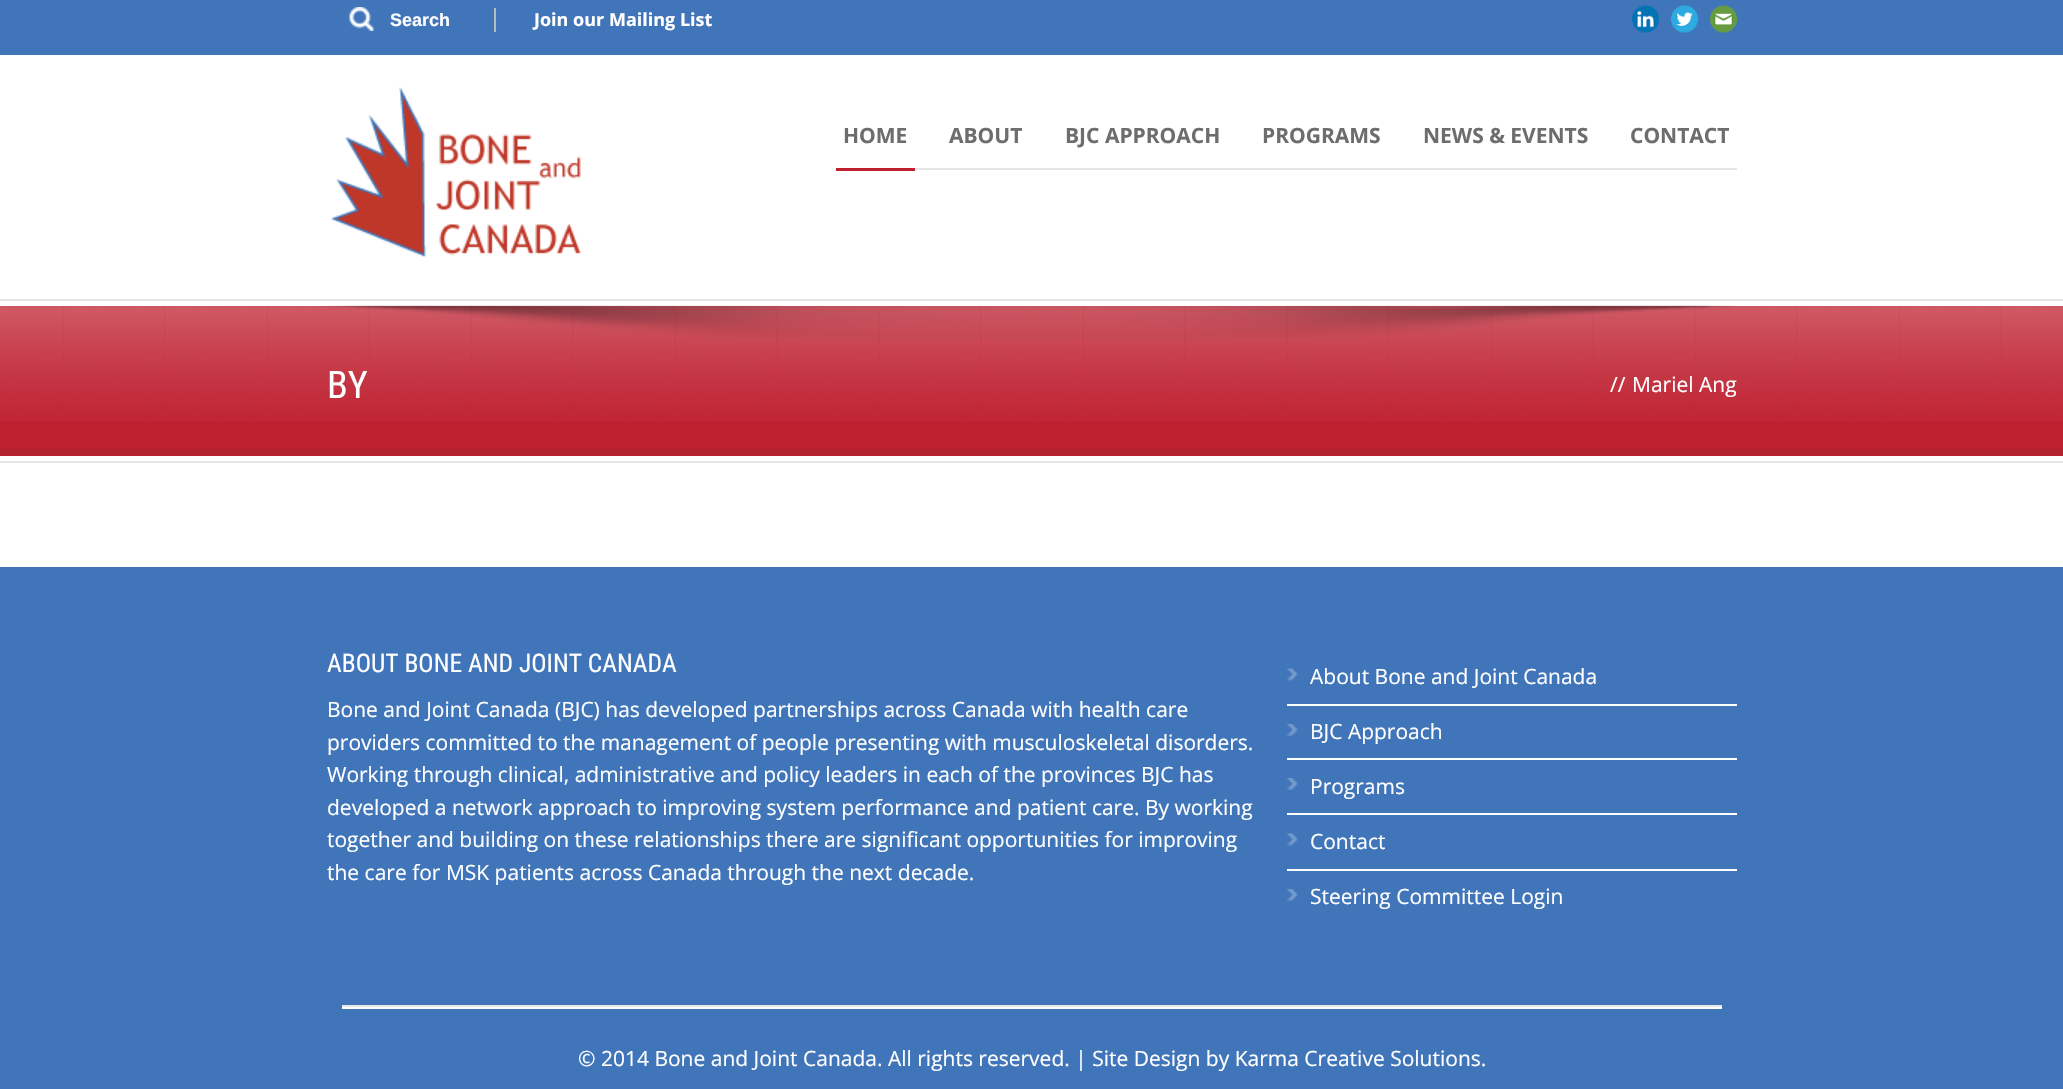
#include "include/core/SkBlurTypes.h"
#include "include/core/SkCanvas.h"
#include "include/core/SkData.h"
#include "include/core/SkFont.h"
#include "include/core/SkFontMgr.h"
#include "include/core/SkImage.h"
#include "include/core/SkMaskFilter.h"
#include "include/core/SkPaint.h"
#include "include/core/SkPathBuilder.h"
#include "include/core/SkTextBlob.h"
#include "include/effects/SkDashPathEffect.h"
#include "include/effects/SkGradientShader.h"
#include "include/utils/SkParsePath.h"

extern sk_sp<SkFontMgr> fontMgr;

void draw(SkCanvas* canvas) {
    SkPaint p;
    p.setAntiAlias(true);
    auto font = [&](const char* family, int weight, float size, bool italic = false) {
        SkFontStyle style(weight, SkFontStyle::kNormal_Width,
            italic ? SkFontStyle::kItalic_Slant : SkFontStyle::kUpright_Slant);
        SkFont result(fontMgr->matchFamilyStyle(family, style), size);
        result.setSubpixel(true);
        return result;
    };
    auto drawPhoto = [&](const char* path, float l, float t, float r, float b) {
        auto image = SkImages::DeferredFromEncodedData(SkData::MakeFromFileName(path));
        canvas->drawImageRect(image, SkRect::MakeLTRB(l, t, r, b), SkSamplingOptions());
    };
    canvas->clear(0xFFFFFFFF);
    p.setColor(0xFF4175B9);
    canvas->drawRect(SkRect::MakeLTRB(0, 0, 2063, 55), p);
    drawPhoto("media/1.png", 349, 7, 374, 31);
    p.setColor(0xFFBABABA);
    canvas->drawRect(SkRect::MakeLTRB(494, 8, 496, 32), p);
    auto font1 = font("Liberation Sans", 700, 18);
    p.setColor(0xFFFFFFFF);
    canvas->drawString("Search", 390, 26, font1, p);
    auto font2 = font("Open Sans", 700, 18);
    canvas->drawString("Join our Mailing List", 534, 26, font2, p);
    drawPhoto("media/2.png", 1632, 5, 1659, 33);
    drawPhoto("media/3.png", 1671, 5, 1698, 33);
    drawPhoto("media/4.png", 1710, 5, 1737, 33);
    drawPhoto("media/5.png", 331, 86, 581, 258);
    p.setColor(0xFFE6E6E6);
    canvas->drawRect(SkRect::MakeLTRB(915, 168, 1737, 170), p);
    auto font3 = font("Open Sans", 700, 21);
    p.setColor(0xFF6D6D6D);
    {
        const struct { const char* s; float x, y; } items[] = {
            {"HOME", 843, 143},
            {"ABOUT", 949, 143},
            {"BJC APPROACH", 1065, 143},
            {"PROGRAMS", 1262, 143},
            {"NEWS & EVENTS", 1423, 143},
            {"CONTACT", 1630, 143},
        };
        for (auto [s, x, y] : items) {
            canvas->drawString(s, x, y, font3, p);
        }
    }
    {
        const struct { float l, t, r, b; SkColor color; } items[] = {
            {836, 168, 915, 171, 0xFFBF2030},
            {0, 299, 2063, 301, 0xFFE6E6E6},
            {0, 461, 2063, 463, 0xFFE6E6E6},
            {0, 306, 2063, 456, 0xFFBF2030},
        };
        for (auto [l, t, r, b, color] : items) {
            p.setColor(color);
            canvas->drawRect(SkRect::MakeLTRB(l, t, r, b), p);
        }
    }
    drawPhoto("media/6.png", 0, 306, 2063, 422);
    drawPhoto("media/7.png", 318, 305, 1746, 339);
    auto font4 = font("Roboto Condensed", 400, 38);
    p.setColor(0xFFFFFFFF);
    canvas->drawString("BY", 327, 398, font4, p);
    auto font5 = font("Open Sans", 400, 21);
    canvas->drawString("//", 1610, 392, font5, p);
    canvas->drawString("Mariel Ang", 1632, 392, font5, p);
    drawPhoto("media/8.png", 0, 447, 2063, 456);
    p.setColor(0xFF4175B9);
    canvas->drawRect(SkRect::MakeLTRB(0, 567, 2063, 1089), p);
    auto font6 = font("Roboto Condensed", 400, 25.5f);
    p.setColor(0xFFFFFFFF);
    canvas->drawString("ABOUT BONE AND JOINT CANADA", 327, 672, font6, p);
    {
        const struct { const char* s; float x, y; } items[] = {
            {"Bone and Joint Canada (BJC) has developed partnerships across Canada with health care", 327, 717},
            {"providers committed to the management of people presenting with musculoskeletal disorders.", 327, 750},
            {"Working through clinical, administrative and policy leaders in each of the provinces BJC has", 327, 782},
            {"developed a network approach to improving system performance and patient care. By working", 327, 815},
            {"together and building on these relationships there are significant opportunities for improving", 327, 847},
            {"the care for MSK patients across Canada through the next decade.", 327, 880},
        };
        for (auto [s, x, y] : items) {
            canvas->drawString(s, x, y, font5, p);
        }
    }
    drawPhoto("media/9.png", 1287, 668, 1298, 681);
    canvas->drawRect(SkRect::MakeLTRB(1287, 704, 1737, 706), p);
    canvas->drawString("About Bone and Joint Canada", 1310, 684, font5, p);
    drawPhoto("media/10.png", 1287, 724, 1298, 736);
    canvas->drawRect(SkRect::MakeLTRB(1287, 758, 1737, 760), p);
    canvas->drawString("BJC Approach", 1310, 739, font5, p);
    drawPhoto("media/10.png", 1287, 778, 1298, 790);
    canvas->drawRect(SkRect::MakeLTRB(1287, 813, 1737, 815), p);
    canvas->drawString("Programs", 1310, 794, font5, p);
    drawPhoto("media/9.png", 1287, 833, 1298, 846);
    canvas->drawRect(SkRect::MakeLTRB(1287, 869, 1737, 871), p);
    canvas->drawString("Contact", 1310, 849, font5, p);
    drawPhoto("media/10.png", 1287, 889, 1298, 901);
    canvas->drawString("Steering Committee Login", 1310, 904, font5, p);
    p.setColor(0xFFE8E8E8);
    canvas->drawRect(SkRect::MakeLTRB(342, 1005, 1722, 1007), p);
    p.setColor(0xFFFFFFFF);
    canvas->drawRect(SkRect::MakeLTRB(342, 1007, 1722, 1009), p);
    canvas->drawString("© 2014 Bone and Joint Canada. All rights reserved. | Site Design by Karma Creative Solutions.", 578, 1066, font5, p);
}
